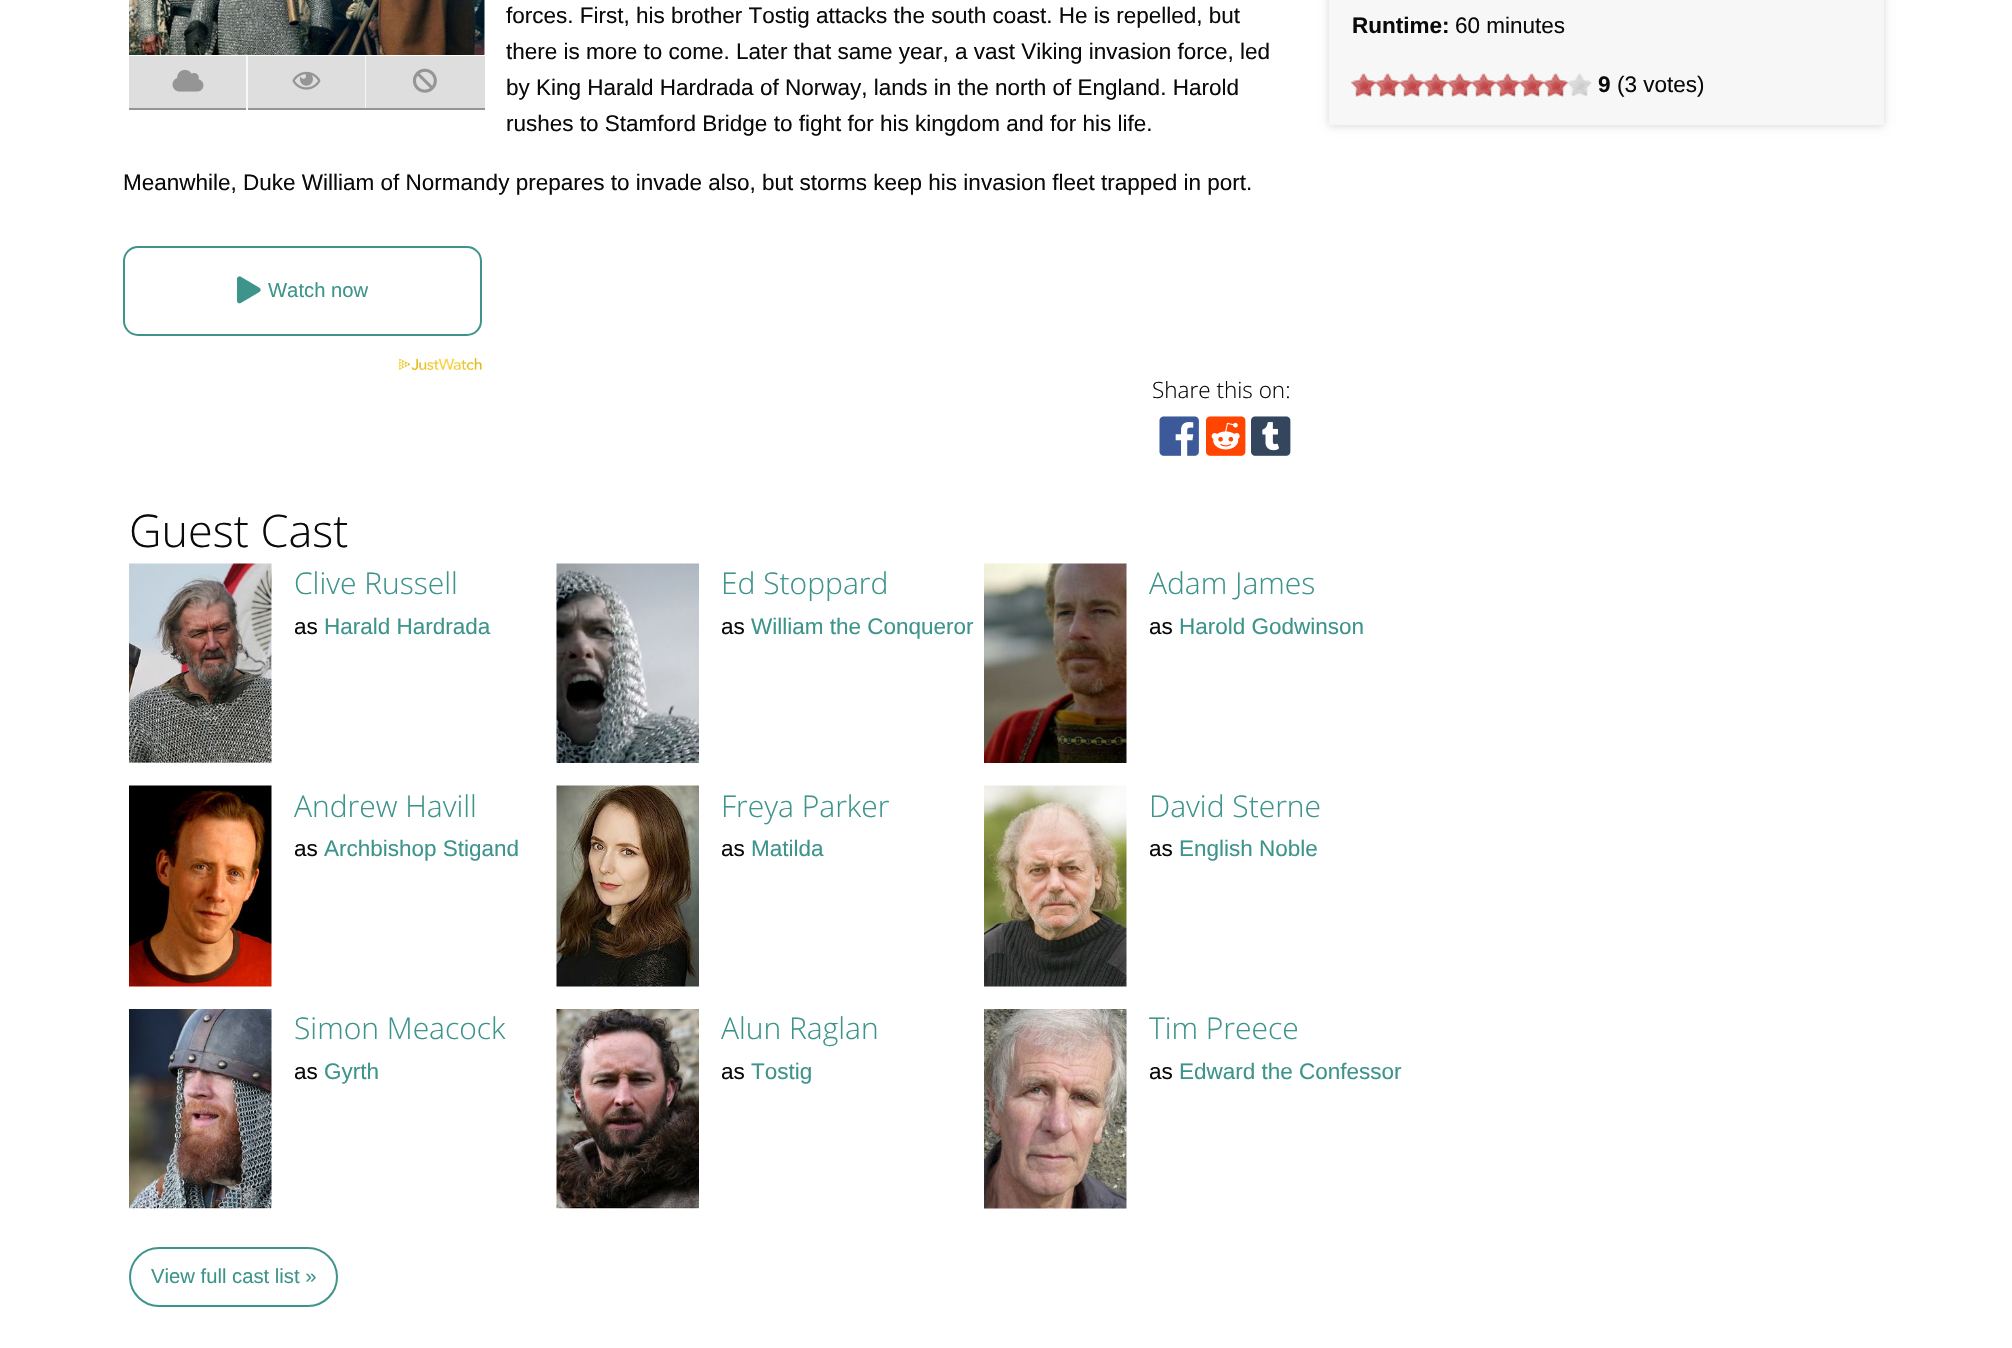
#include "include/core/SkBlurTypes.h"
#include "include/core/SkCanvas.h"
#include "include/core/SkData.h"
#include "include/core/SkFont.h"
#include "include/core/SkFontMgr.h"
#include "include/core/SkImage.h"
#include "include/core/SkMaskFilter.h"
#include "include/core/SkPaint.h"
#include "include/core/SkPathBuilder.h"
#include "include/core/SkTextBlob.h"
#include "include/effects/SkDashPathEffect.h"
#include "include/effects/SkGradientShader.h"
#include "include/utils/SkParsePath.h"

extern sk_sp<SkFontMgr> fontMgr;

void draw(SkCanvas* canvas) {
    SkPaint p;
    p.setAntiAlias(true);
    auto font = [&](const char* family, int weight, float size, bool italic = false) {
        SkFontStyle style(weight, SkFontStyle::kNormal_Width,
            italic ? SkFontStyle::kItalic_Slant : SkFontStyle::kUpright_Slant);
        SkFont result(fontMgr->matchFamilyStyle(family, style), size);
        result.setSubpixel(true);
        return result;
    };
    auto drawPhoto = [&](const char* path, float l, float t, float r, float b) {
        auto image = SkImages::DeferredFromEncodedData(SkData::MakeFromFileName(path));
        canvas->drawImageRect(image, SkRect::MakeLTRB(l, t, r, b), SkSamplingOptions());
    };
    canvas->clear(0xFFFFFFFF);
    drawPhoto("media/1.png", 129, 0, 485, 55);
    p.setColor(0xFFDEDEDE);
    canvas->drawRect(SkRect::MakeLTRB(129, 56, 246, 108), p);
    p.setColor(0xFF959595);
    canvas->drawRect(SkRect::MakeLTRB(129, 108, 246, 110), p);
    drawPhoto("media/2.png", 172, 69, 204, 92);
    {
        const struct { float l, t, r, b; SkColor color; } items[] = {
            {248, 56, 365, 108, 0xFFDEDEDE},
            {365, 56, 366, 110, 0xFFF7F7F7},
            {246, 108, 485, 110, 0xFF959595},
            {246, 56, 248, 110, 0xFFF7F7F7},
        };
        for (auto [l, t, r, b, color] : items) {
            p.setColor(color);
            canvas->drawRect(SkRect::MakeLTRB(l, t, r, b), p);
        }
    }
    drawPhoto("media/3.png", 292, 71, 321, 90);
    p.setColor(0xFFDEDEDE);
    canvas->drawRect(SkRect::MakeLTRB(366, 56, 485, 108), p);
    drawPhoto("media/4.png", 412, 68, 437, 93);
    auto font1 = font("Liberation Sans", 400, 22.5f);
    p.setColor(0xFF0A0A0A);
    {
        const struct { const char* s; float x, y; } items[] = {
            {"forces. First, his brother Tostig attacks the south coast. He is repelled, but", 506, 23},
            {"there is more to come. Later that same year, a vast Viking invasion force, led", 506, 59},
            {"by King Harald Hardrada of Norway, lands in the north of England. Harold", 506, 95},
            {"rushes to Stamford Bridge to fight for his kingdom and for his life.", 506, 131},
            {"Meanwhile, Duke William of Normandy prepares to invade also, but storms keep his invasion fleet trapped in port.", 123, 190},
        };
        for (auto [s, x, y] : items) {
            canvas->drawString(s, x, y, font1, p);
        }
    }
    p.setStyle(SkPaint::kStroke_Style);
    p.setStrokeWidth(2);
    p.setColor(0xFF3C948B);
    canvas->drawRoundRect(SkRect::MakeLTRB(124, 247, 481, 335), 14, 14, p);
    drawPhoto("media/5.png", 237, 276, 261, 304);
    auto font2 = font("Liberation Sans", 400, 20.25f);
    p.setStyle(SkPaint::kFill_Style);
    canvas->drawString("Watch now", 268, 297, font2, p);
    drawPhoto("media/6.png", 399, 358, 482, 370);
    auto font3 = font("Open Sans", 300, 22.5f);
    p.setColor(0xFF0A0A0A);
    canvas->drawString("Share this on:", 1152, 398, font3, p);
    drawPhoto("media/7.png", 1159, 416, 1199, 456);
    drawPhoto("media/8.png", 1206, 416, 1246, 456);
    drawPhoto("media/9.png", 1251, 416, 1291, 456);
    p.setColor(0x26000000);
    p.setMaskFilter(SkMaskFilter::MakeBlur(kNormal_SkBlurStyle, 4));
    canvas->drawRect(SkRect::MakeLTRB(1329, -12, 1884, 126), p);
    p.setMaskFilter(nullptr);
    p.setColor(0xFFF7F7F7);
    canvas->drawRect(SkRect::MakeLTRB(1329, 0, 1884, 125), p);
    auto font4 = font("Liberation Sans", 700, 22.5f);
    p.setColor(0xFF0A0A0A);
    canvas->drawString("Runtime:", 1352, 33, font4, p);
    canvas->drawString("60 minutes", 1455, 33, font1, p);
    drawPhoto("media/10.png", 1351, 73, 1592, 97);
    drawPhoto("media/11.png", 1351, 73, 1568, 97);
    canvas->drawString("9", 1598, 92, font4, p);
    canvas->drawString("(3 votes)", 1617, 92, font1, p);
    auto font5 = font("Open Sans", 300, 45);
    canvas->drawString("Guest Cast", 129, 547, font5, p);
    drawPhoto("media/12.png", 129, 563, 272, 763);
    auto font6 = font("Open Sans", 300, 30);
    p.setColor(0xFF3C948B);
    canvas->drawString("Clive Russell", 294, 594, font6, p);
    p.setColor(0xFF0A0A0A);
    canvas->drawString("as", 294, 634, font1, p);
    p.setColor(0xFF3C948B);
    canvas->drawString("Harald Hardrada", 324, 634, font1, p);
    drawPhoto("media/13.png", 556, 563, 699, 763);
    canvas->drawString("Ed Stoppard", 721, 594, font6, p);
    p.setColor(0xFF0A0A0A);
    canvas->drawString("as", 721, 634, font1, p);
    p.setColor(0xFF3C948B);
    canvas->drawString("William the Conqueror", 751, 634, font1, p);
    drawPhoto("media/14.png", 984, 563, 1127, 763);
    canvas->drawString("Adam James", 1149, 594, font6, p);
    p.setColor(0xFF0A0A0A);
    canvas->drawString("as", 1149, 634, font1, p);
    p.setColor(0xFF3C948B);
    canvas->drawString("Harold Godwinson", 1179, 634, font1, p);
    drawPhoto("media/15.png", 129, 785, 272, 987);
    canvas->drawString("Andrew Havill", 294, 817, font6, p);
    p.setColor(0xFF0A0A0A);
    canvas->drawString("as", 294, 856, font1, p);
    p.setColor(0xFF3C948B);
    canvas->drawString("Archbishop Stigand", 324, 856, font1, p);
    drawPhoto("media/16.png", 556, 785, 699, 987);
    canvas->drawString("Freya Parker", 721, 817, font6, p);
    p.setColor(0xFF0A0A0A);
    canvas->drawString("as", 721, 856, font1, p);
    p.setColor(0xFF3C948B);
    canvas->drawString("Matilda", 751, 856, font1, p);
    drawPhoto("media/17.png", 984, 785, 1127, 987);
    canvas->drawString("David Sterne", 1149, 817, font6, p);
    p.setColor(0xFF0A0A0A);
    canvas->drawString("as", 1149, 856, font1, p);
    p.setColor(0xFF3C948B);
    canvas->drawString("English Noble", 1179, 856, font1, p);
    drawPhoto("media/18.png", 129, 1009, 272, 1209);
    canvas->drawString("Simon Meacock", 294, 1039, font6, p);
    p.setColor(0xFF0A0A0A);
    canvas->drawString("as", 294, 1079, font1, p);
    p.setColor(0xFF3C948B);
    canvas->drawString("Gyrth", 324, 1079, font1, p);
    drawPhoto("media/19.png", 556, 1009, 699, 1209);
    canvas->drawString("Alun Raglan", 721, 1039, font6, p);
    p.setColor(0xFF0A0A0A);
    canvas->drawString("as", 721, 1079, font1, p);
    p.setColor(0xFF3C948B);
    canvas->drawString("Tostig", 751, 1079, font1, p);
    drawPhoto("media/20.png", 984, 1009, 1127, 1209);
    canvas->drawString("Tim Preece", 1149, 1039, font6, p);
    p.setColor(0xFF0A0A0A);
    canvas->drawString("as", 1149, 1079, font1, p);
    p.setColor(0xFF3C948B);
    canvas->drawString("Edward the Confessor", 1179, 1079, font1, p);
    p.setStyle(SkPaint::kStroke_Style);
    canvas->drawRoundRect(SkRect::MakeLTRB(130, 1248, 337, 1306), 29, 29, p);
    p.setStyle(SkPaint::kFill_Style);
    canvas->drawString("View full cast list »", 151, 1283, font2, p);
}
